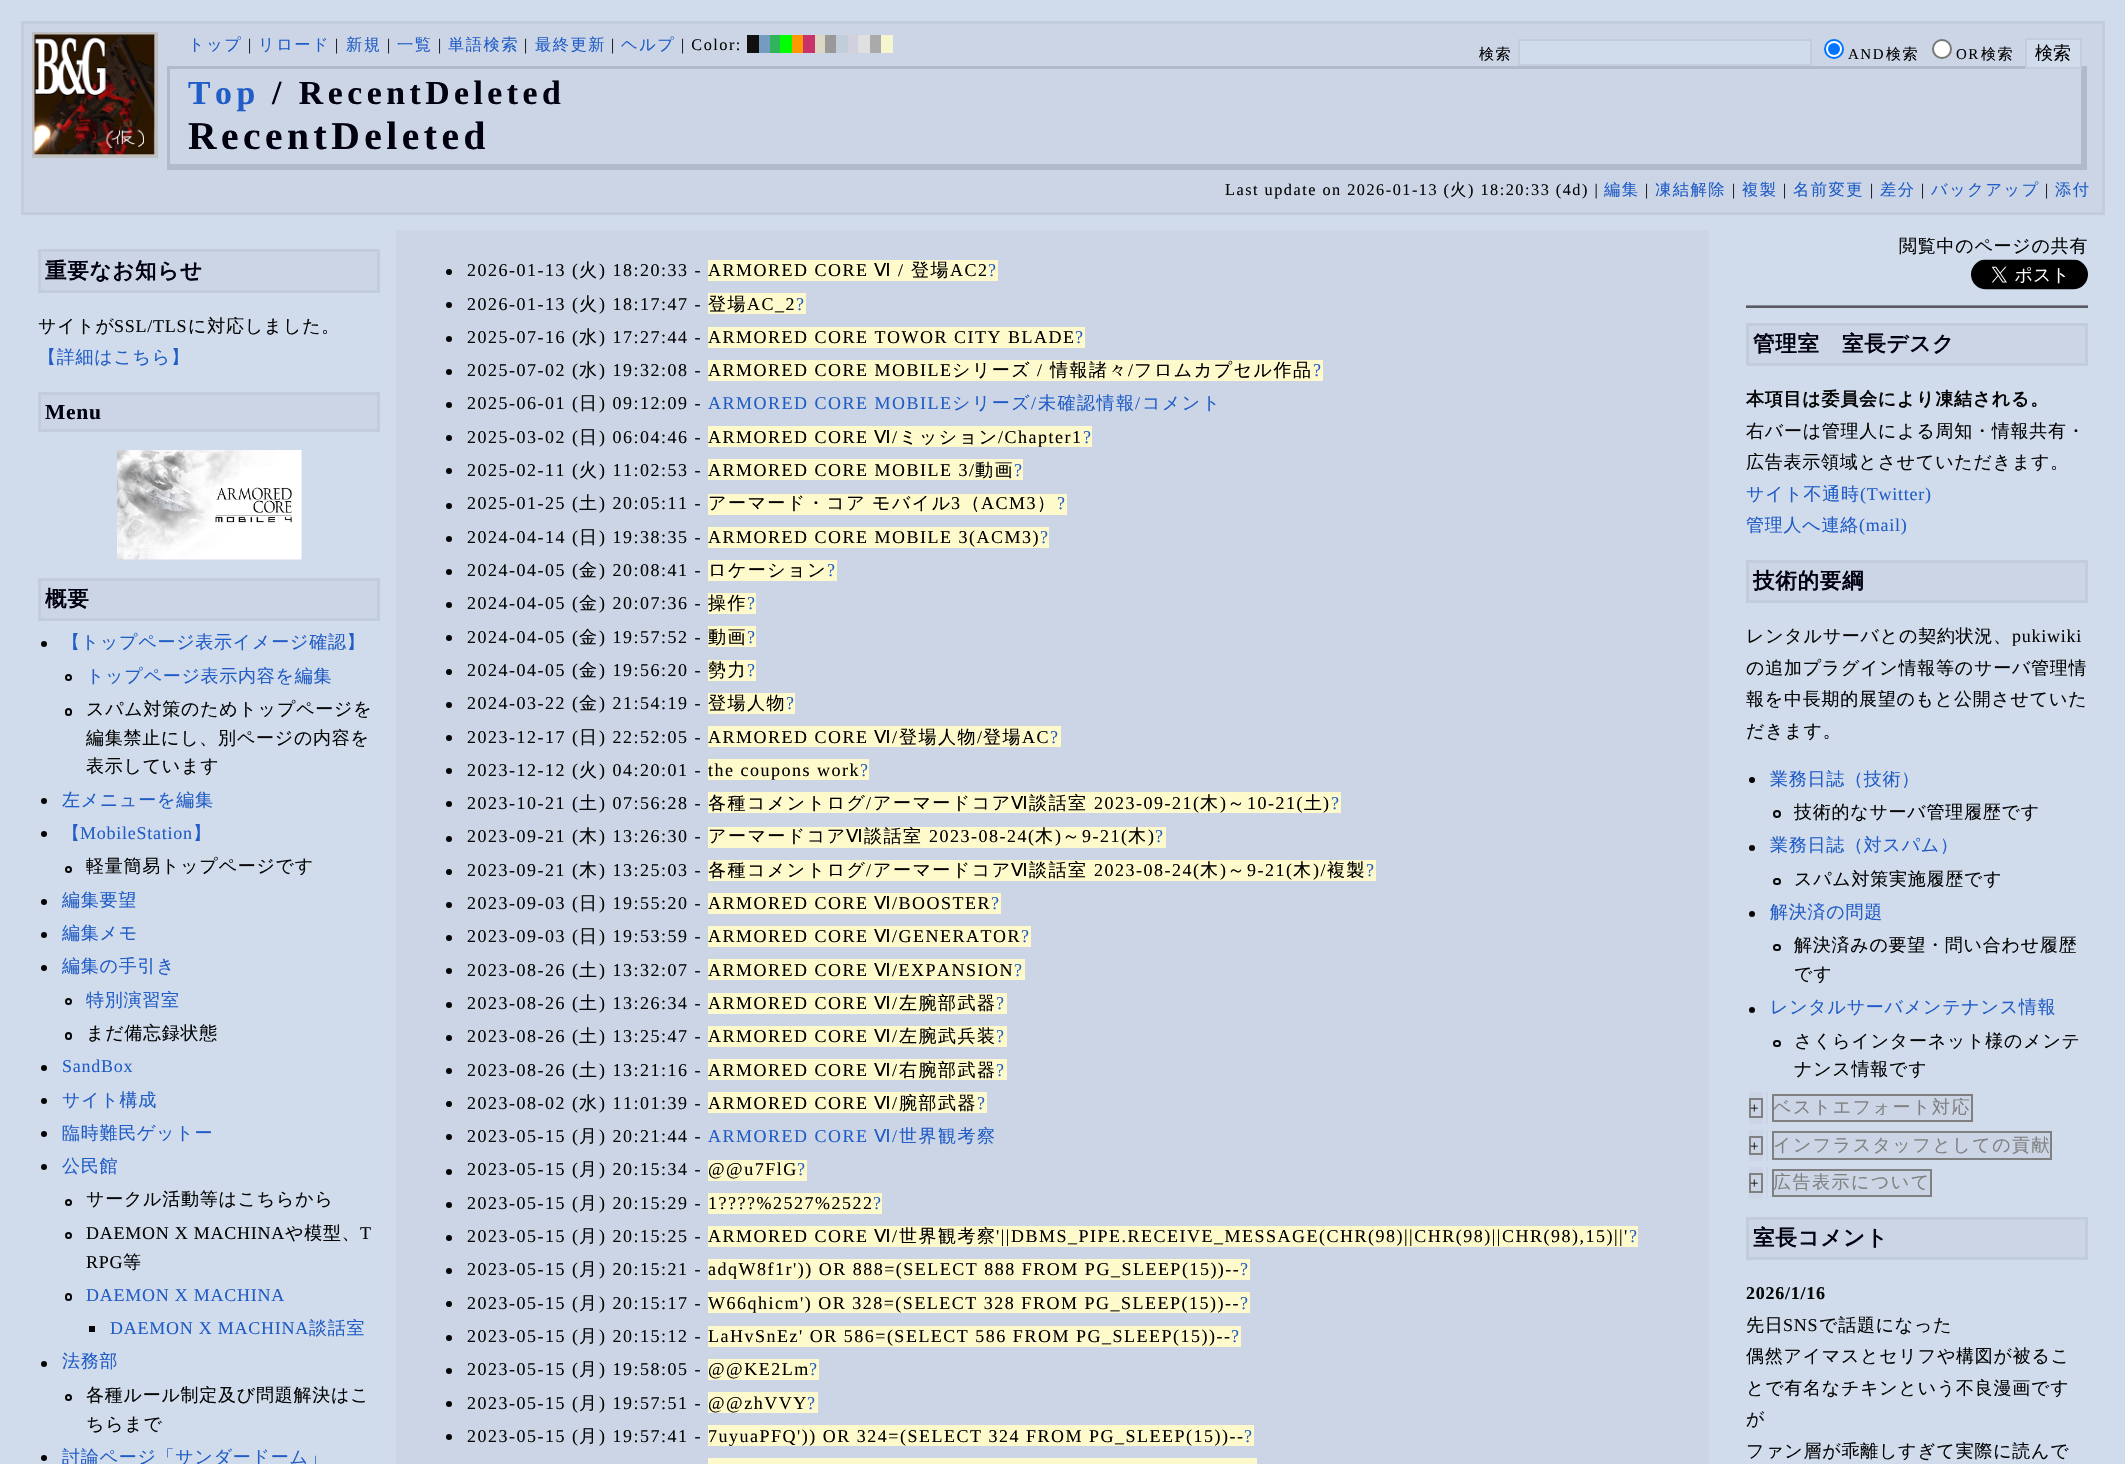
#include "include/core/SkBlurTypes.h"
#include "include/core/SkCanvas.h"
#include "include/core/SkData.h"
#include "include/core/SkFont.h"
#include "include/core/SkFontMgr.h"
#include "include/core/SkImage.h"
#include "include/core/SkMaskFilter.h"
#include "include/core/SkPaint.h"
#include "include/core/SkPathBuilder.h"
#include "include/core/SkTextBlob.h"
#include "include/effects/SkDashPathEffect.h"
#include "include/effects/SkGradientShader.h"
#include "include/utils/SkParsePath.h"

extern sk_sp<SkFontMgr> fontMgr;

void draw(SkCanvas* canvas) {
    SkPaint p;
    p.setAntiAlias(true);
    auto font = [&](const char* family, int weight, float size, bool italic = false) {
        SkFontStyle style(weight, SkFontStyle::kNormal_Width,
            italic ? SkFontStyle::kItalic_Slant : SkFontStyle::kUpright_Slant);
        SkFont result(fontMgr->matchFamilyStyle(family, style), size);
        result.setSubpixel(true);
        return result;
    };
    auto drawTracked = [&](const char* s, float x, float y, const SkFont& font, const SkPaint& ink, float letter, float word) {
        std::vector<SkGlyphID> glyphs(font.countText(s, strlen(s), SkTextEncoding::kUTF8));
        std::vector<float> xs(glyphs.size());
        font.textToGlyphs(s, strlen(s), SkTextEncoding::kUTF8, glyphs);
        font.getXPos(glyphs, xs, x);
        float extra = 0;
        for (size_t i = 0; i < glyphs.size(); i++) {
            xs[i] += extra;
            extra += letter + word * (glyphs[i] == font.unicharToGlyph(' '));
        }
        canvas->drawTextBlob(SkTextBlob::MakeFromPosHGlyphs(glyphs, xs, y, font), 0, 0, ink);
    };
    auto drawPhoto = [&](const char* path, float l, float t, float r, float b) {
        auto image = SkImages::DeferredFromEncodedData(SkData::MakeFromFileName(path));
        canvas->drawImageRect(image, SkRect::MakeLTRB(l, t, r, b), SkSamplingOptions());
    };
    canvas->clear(0xFFD0DBEB);
    p.setColor(0xFFCBD5E6);
    canvas->drawRect(SkRect::MakeLTRB(22.5f, 22.5f, 2103.5f, 213.5f), p);
    p.setStyle(SkPaint::kStroke_Style);
    p.setStrokeWidth(3);
    p.setColor(0xFFC2CDDC);
    canvas->drawRect(SkRect::MakeLTRB(22.5f, 22.5f, 2103.5f, 213.5f), p);
    p.setStyle(SkPaint::kFill_Style);
    p.setColor(0xFFFFFFFF);
    canvas->drawRect(SkRect::MakeLTRB(33.5f, 33.5f, 156.5f, 156.5f), p);
    p.setStyle(SkPaint::kStroke_Style);
    p.setColor(0xFFC0C0C0);
    canvas->drawRect(SkRect::MakeLTRB(33.5f, 33.5f, 156.5f, 156.5f), p);
    drawPhoto("media/1.png", 34, 34, 155, 155);
    auto font1 = font("WenQuanYi Zen Hei", 500, 16.25f);
    p.setStyle(SkPaint::kFill_Style);
    p.setColor(0xFF215DC6);
    drawTracked("トップ", 188, 50, font1, p, 1.5f, 0);
    auto font2 = font("Liberation Serif", 400, 16.25f);
    p.setColor(0xFF060606);
    drawTracked("|", 248, 50, font2, p, 1.5f, 0);
    p.setColor(0xFF215DC6);
    drawTracked("リロード", 258, 50, font1, p, 1.5f, 0);
    p.setColor(0xFF060606);
    drawTracked("|", 335, 50, font2, p, 1.5f, 0);
    p.setColor(0xFF215DC6);
    drawTracked("新規", 346, 50, font1, p, 1.5f, 0);
    p.setColor(0xFF060606);
    drawTracked("|", 387, 50, font2, p, 1.5f, 0);
    p.setColor(0xFF215DC6);
    drawTracked("一覧", 397, 50, font1, p, 1.5f, 0);
    p.setColor(0xFF060606);
    drawTracked("|", 438, 50, font2, p, 1.5f, 0);
    p.setColor(0xFF215DC6);
    drawTracked("単語検索", 448, 50, font1, p, 1.5f, 0);
    p.setColor(0xFF060606);
    drawTracked("|", 524, 50, font2, p, 1.5f, 0);
    p.setColor(0xFF215DC6);
    drawTracked("最終更新", 535, 50, font1, p, 1.5f, 0);
    p.setColor(0xFF060606);
    drawTracked("|", 611, 50, font2, p, 1.5f, 0);
    p.setColor(0xFF215DC6);
    drawTracked("ヘルプ", 621, 50, font1, p, 1.5f, 0);
    p.setColor(0xFF060606);
    drawTracked("| Color:", 681, 50, font2, p, 1.5f, 0);
    {
        const struct { float l, t, r, b; SkColor color; } items[] = {
            {747, 35, 759, 53, 0xFF101010},
            {759, 35, 770, 53, 0xFF769BC0},
            {770, 35, 780, 53, 0xFF2FB35B},
            {780, 35, 792, 53, 0xFF00FF00},
            {792, 35, 803, 53, 0xFFFF9900},
            {803, 35, 815, 53, 0xFFC9336A},
            {815, 35, 825, 53, 0xFFDCD7C2},
            {825, 35, 836, 53, 0xFF999999},
            {836, 35, 848, 53, 0xFFC2CDDC},
            {848, 35, 858, 53, 0xFFD0D0DF},
            {858, 35, 870, 53, 0xFFE0E0E0},
            {870, 35, 881, 53, 0xFFAAAAAA},
            {881, 35, 893, 53, 0xFFF5F5CF},
        };
        for (auto [l, t, r, b, color] : items) {
            p.setColor(color);
            canvas->drawRect(SkRect::MakeLTRB(l, t, r, b), p);
        }
    }
    auto font3 = font("WenQuanYi Zen Hei", 500, 15);
    p.setColor(0xFF060606);
    drawTracked("検索", 1479, 59, font3, p, 1.5f, 0);
    p.setColor(0xFFD0DBEB);
    canvas->drawRect(SkRect::MakeLTRB(1519, 40, 1811, 65), p);
    p.setStyle(SkPaint::kStroke_Style);
    p.setStrokeWidth(2);
    p.setColor(0xFFC2CDDC);
    canvas->drawRect(SkRect::MakeLTRB(1519, 40, 1811, 65), p);
    p.setStyle(SkPaint::kFill_Style);
    p.setColor(0xFFFFFFFF);
    canvas->drawCircle(1834, 49, 9, p);
    p.setStyle(SkPaint::kStroke_Style);
    p.setColor(0xFF0075FF);
    canvas->drawCircle(1834, 49, 9, p);
    p.setStyle(SkPaint::kFill_Style);
    canvas->drawCircle(1834, 49, 6, p);
    auto font4 = font("Liberation Serif", 400, 15);
    p.setColor(0xFF060606);
    drawTracked("AND", 1848, 59, font4, p, 1.5f, 0);
    drawTracked("検索", 1886, 59, font3, p, 1.5f, 0);
    p.setColor(0xFFFFFFFF);
    canvas->drawCircle(1942, 49, 9, p);
    p.setStyle(SkPaint::kStroke_Style);
    p.setColor(0xFF767676);
    canvas->drawCircle(1942, 49, 9, p);
    p.setStyle(SkPaint::kFill_Style);
    p.setColor(0xFF060606);
    drawTracked("OR", 1956, 59, font4, p, 1.5f, 0);
    drawTracked("検索", 1981, 59, font3, p, 1.5f, 0);
    p.setColor(0xFFB1BAC8);
    canvas->drawRect(SkRect::MakeLTRB(2081, 66, 2087, 170), p);
    p.setColor(0xFFD0DBEB);
    canvas->drawRect(SkRect::MakeLTRB(2026, 39, 2081, 68), p);
    p.setStyle(SkPaint::kStroke_Style);
    p.setColor(0xFFC2CDDC);
    canvas->drawRect(SkRect::MakeLTRB(2026, 39, 2081, 68), p);
    auto font5 = font("WenQuanYi Zen Hei", 500, 18);
    p.setStyle(SkPaint::kFill_Style);
    p.setColor(0xFF060606);
    canvas->drawString("検索", 2035, 59, font5, p);
    {
        const struct { float l, t, r, b; SkColor color; } items[] = {
            {167, 66, 2025, 69, 0xFFB1BAC8},
            {167, 164, 2087, 170, 0xFFB1BAC8},
            {167, 66, 170, 170, 0xFFB1BAC8},
        };
        for (auto [l, t, r, b, color] : items) {
            p.setColor(color);
            canvas->drawRect(SkRect::MakeLTRB(l, t, r, b), p);
        }
    }
    auto font6 = font("Liberation Serif", 700, 33.75f);
    p.setColor(0xFF215DC6);
    drawTracked("Top", 188, 104, font6, p, 4.5f, 0);
    p.setColor(0xFF00000F);
    drawTracked("/ RecentDeleted", 272, 104, font6, p, 4.5f, 0);
    auto font7 = font("Liberation Serif", 700, 39.5f);
    drawTracked("RecentDeleted", 188, 149, font7, p, 4.5f, 0);
    p.setColor(0xFF060606);
    drawTracked("Last update on 2026-01-13 (", 1225, 195, font2, p, 1.5f, 0);
    drawTracked("火", 1450, 195, font1, p, 1.5f, 0);
    drawTracked(") 18:20:33 (4d) |", 1468, 195, font2, p, 1.5f, 0);
    p.setColor(0xFF215DC6);
    drawTracked("編集", 1604, 195, font1, p, 1.5f, 0);
    p.setColor(0xFF060606);
    drawTracked("|", 1645, 195, font2, p, 1.5f, 0);
    p.setColor(0xFF215DC6);
    drawTracked("凍結解除", 1655, 195, font1, p, 1.5f, 0);
    p.setColor(0xFF060606);
    drawTracked("|", 1732, 195, font2, p, 1.5f, 0);
    p.setColor(0xFF215DC6);
    drawTracked("複製", 1742, 195, font1, p, 1.5f, 0);
    p.setColor(0xFF060606);
    drawTracked("|", 1783, 195, font2, p, 1.5f, 0);
    p.setColor(0xFF215DC6);
    drawTracked("名前変更", 1793, 195, font1, p, 1.5f, 0);
    p.setColor(0xFF060606);
    drawTracked("|", 1870, 195, font2, p, 1.5f, 0);
    p.setColor(0xFF215DC6);
    drawTracked("差分", 1880, 195, font1, p, 1.5f, 0);
    p.setColor(0xFF060606);
    drawTracked("|", 1921, 195, font2, p, 1.5f, 0);
    p.setColor(0xFF215DC6);
    drawTracked("バックアップ", 1931, 195, font1, p, 1.5f, 0);
    p.setColor(0xFF060606);
    drawTracked("|", 2045, 195, font2, p, 1.5f, 0);
    p.setColor(0xFF215DC6);
    drawTracked("添付", 2055, 195, font1, p, 1.5f, 0);
    p.setColor(0xFFCBD5E6);
    canvas->drawRect(SkRect::MakeLTRB(39.5f, 250.5f, 378.5f, 291.5f), p);
    p.setStyle(SkPaint::kStroke_Style);
    p.setStrokeWidth(3);
    p.setColor(0xFFC2CDDC);
    canvas->drawRect(SkRect::MakeLTRB(39.5f, 250.5f, 378.5f, 291.5f), p);
    auto font8 = font("WenQuanYi Zen Hei", 700, 21.5f);
    p.setStyle(SkPaint::kFill_Style);
    p.setColor(0xFF00000F);
    drawTracked("重要なお知らせ", 45, 278, font8, p, 0.75f, 0);
    p.setColor(0xFF060606);
    drawTracked("サイトが", 38, 332, font5, p, 0.75f, 0);
    auto font9 = font("Liberation Serif", 400, 18);
    drawTracked("SSL/TLS", 114, 332, font9, p, 0.75f, 0);
    drawTracked("に対応しました。", 188, 332, font5, p, 0.75f, 0);
    p.setColor(0xFF215DC6);
    drawTracked("【詳細はこちら】", 38, 363, font5, p, 0.75f, 0);
    p.setColor(0xFFCBD5E6);
    canvas->drawRect(SkRect::MakeLTRB(39.5f, 393.5f, 378.5f, 430.5f), p);
    p.setStyle(SkPaint::kStroke_Style);
    p.setColor(0xFFC2CDDC);
    canvas->drawRect(SkRect::MakeLTRB(39.5f, 393.5f, 378.5f, 430.5f), p);
    auto font10 = font("Liberation Serif", 700, 21.5f);
    p.setStyle(SkPaint::kFill_Style);
    p.setColor(0xFF00000F);
    drawTracked("Menu", 45, 419, font10, p, 0.75f, 0);
    drawPhoto("media/2.png", 117, 450, 302, 560);
    p.setColor(0xFFCBD5E6);
    canvas->drawRect(SkRect::MakeLTRB(39.5f, 579.5f, 378.5f, 619.5f), p);
    p.setStyle(SkPaint::kStroke_Style);
    p.setColor(0xFFC2CDDC);
    canvas->drawRect(SkRect::MakeLTRB(39.5f, 579.5f, 378.5f, 619.5f), p);
    p.setStyle(SkPaint::kFill_Style);
    p.setColor(0xFF00000F);
    drawTracked("概要", 45, 606, font8, p, 0.75f, 0);
    p.setColor(0xFF060606);
    canvas->drawCircle(44, 644, 3, p);
    p.setColor(0xFF215DC6);
    drawTracked("【トップページ表示イメージ確認】", 62, 648, font5, p, 0.75f, 0);
    p.setStyle(SkPaint::kStroke_Style);
    p.setStrokeWidth(2);
    p.setColor(0xFF060606);
    canvas->drawCircle(68.5f, 677.5f, 2.5f, p);
    p.setStyle(SkPaint::kFill_Style);
    p.setColor(0xFF215DC6);
    drawTracked("トップページ表示内容を編集", 86, 682, font5, p, 0.75f, 0);
    p.setStyle(SkPaint::kStroke_Style);
    p.setColor(0xFF060606);
    canvas->drawRoundRect(SkRect::MakeLTRB(66, 709, 71, 715), 2.5f, 2.5f, p);
    p.setStyle(SkPaint::kFill_Style);
    {
        const struct { const char* s; float x, y; } items[] = {
            {"スパム対策のためトップページを", 86, 715},
            {"編集禁止にし、別ページの内容を", 86, 744},
            {"表示しています", 86, 772},
        };
        for (auto [s, x, y] : items) {
            drawTracked(s, x, y, font5, p, 0.75f, 0);
        }
    }
    canvas->drawCircle(44, 801, 3, p);
    p.setColor(0xFF215DC6);
    drawTracked("左メニューを編集", 62, 806, font5, p, 0.75f, 0);
    p.setColor(0xFF060606);
    canvas->drawCircle(44, 834, 3, p);
    p.setColor(0xFF215DC6);
    drawTracked("【", 62, 839, font5, p, 0.75f, 0);
    drawTracked("MobileStation", 80, 839, font9, p, 0.75f, 0);
    drawTracked("】", 193, 839, font5, p, 0.75f, 0);
    p.setStyle(SkPaint::kStroke_Style);
    p.setColor(0xFF060606);
    canvas->drawCircle(68.5f, 869.5f, 2.5f, p);
    p.setStyle(SkPaint::kFill_Style);
    drawTracked("軽量簡易トップページです", 86, 872, font5, p, 0.75f, 0);
    canvas->drawCircle(44, 902, 3, p);
    p.setColor(0xFF215DC6);
    drawTracked("編集要望", 62, 906, font5, p, 0.75f, 0);
    p.setColor(0xFF060606);
    canvas->drawCircle(44, 935, 3, p);
    p.setColor(0xFF215DC6);
    drawTracked("編集メモ", 62, 939, font5, p, 0.75f, 0);
    p.setColor(0xFF060606);
    canvas->drawCircle(44, 968, 3, p);
    p.setColor(0xFF215DC6);
    drawTracked("編集の手引き", 62, 972, font5, p, 0.75f, 0);
    p.setStyle(SkPaint::kStroke_Style);
    p.setColor(0xFF060606);
    canvas->drawCircle(68.5f, 1001.5f, 2.5f, p);
    p.setStyle(SkPaint::kFill_Style);
    p.setColor(0xFF215DC6);
    drawTracked("特別演習室", 86, 1006, font5, p, 0.75f, 0);
    p.setStyle(SkPaint::kStroke_Style);
    p.setColor(0xFF060606);
    canvas->drawRoundRect(SkRect::MakeLTRB(66, 1033, 71, 1039), 2.5f, 2.5f, p);
    p.setStyle(SkPaint::kFill_Style);
    drawTracked("まだ備忘録状態", 86, 1039, font5, p, 0.75f, 0);
    canvas->drawCircle(44, 1068, 3, p);
    p.setColor(0xFF215DC6);
    drawTracked("SandBox", 62, 1072, font9, p, 0.75f, 0);
    p.setColor(0xFF060606);
    canvas->drawCircle(44, 1101, 3, p);
    p.setColor(0xFF215DC6);
    drawTracked("サイト構成", 62, 1106, font5, p, 0.75f, 0);
    p.setColor(0xFF060606);
    canvas->drawCircle(44, 1134, 3, p);
    p.setColor(0xFF215DC6);
    drawTracked("臨時難民ゲットー", 62, 1139, font5, p, 0.75f, 0);
    p.setColor(0xFF060606);
    canvas->drawCircle(44, 1167, 3, p);
    p.setColor(0xFF215DC6);
    drawTracked("公民館", 62, 1172, font5, p, 0.75f, 0);
    p.setStyle(SkPaint::kStroke_Style);
    p.setColor(0xFF060606);
    canvas->drawCircle(68.5f, 1202.5f, 2.5f, p);
    p.setStyle(SkPaint::kFill_Style);
    drawTracked("サークル活動等はこちらから", 86, 1205, font5, p, 0.75f, 0);
    p.setStyle(SkPaint::kStroke_Style);
    canvas->drawCircle(68.5f, 1235.5f, 2.5f, p);
    p.setStyle(SkPaint::kFill_Style);
    drawTracked("DAEMON X MACHINA", 86, 1239, font9, p, 0.75f, 0);
    drawTracked("や模型、", 285, 1239, font5, p, 0.75f, 0);
    drawTracked("T", 360, 1239, font9, p, 0.75f, 0);
    drawTracked("RPG", 86, 1268, font9, p, 0.75f, 0);
    drawTracked("等", 123, 1268, font5, p, 0.75f, 0);
    p.setStyle(SkPaint::kStroke_Style);
    canvas->drawRoundRect(SkRect::MakeLTRB(66, 1294, 71, 1300), 2.5f, 2.5f, p);
    p.setStyle(SkPaint::kFill_Style);
    p.setColor(0xFF215DC6);
    drawTracked("DAEMON X MACHINA", 86, 1301, font9, p, 0.75f, 0);
    p.setColor(0xFF060606);
    canvas->drawRect(SkRect::MakeLTRB(89, 1326, 95, 1332), p);
    p.setColor(0xFF215DC6);
    drawTracked("DAEMON X MACHINA", 110, 1334, font9, p, 0.75f, 0);
    drawTracked("談話室", 309, 1334, font5, p, 0.75f, 0);
    p.setColor(0xFF060606);
    canvas->drawCircle(44, 1364, 3, p);
    p.setColor(0xFF215DC6);
    drawTracked("法務部", 62, 1367, font5, p, 0.75f, 0);
    p.setStyle(SkPaint::kStroke_Style);
    p.setColor(0xFF060606);
    canvas->drawCircle(68.5f, 1397.5f, 2.5f, p);
    p.setStyle(SkPaint::kFill_Style);
    drawTracked("各種ルール制定及び問題解決はこ", 86, 1401, font5, p, 0.75f, 0);
    drawTracked("ちらまで", 86, 1430, font5, p, 0.75f, 0);
    canvas->drawCircle(44, 1458, 3, p);
    p.setColor(0xFF215DC6);
    drawTracked("討論ページ「サンダードーム」", 62, 1463, font5, p, 0.75f, 0);
    p.setColor(0xFFCBD5E6);
    canvas->drawRect(SkRect::MakeLTRB(396, 230, 1709, 1464), p);
    p.setColor(0xFF060606);
    canvas->drawCircle(449, 272, 3, p);
    drawTracked("2026-01-13 (", 467, 276, font9, p, 1.5f, 0);
    drawTracked("火", 579, 276, font5, p, 1.5f, 0);
    drawTracked(") 18:20:33 -", 599, 276, font9, p, 1.5f, 0);
    p.setColor(0xFFFFFACC);
    canvas->drawRect(SkRect::MakeLTRB(708, 260, 998, 281), p);
    p.setColor(0xFF000000);
    drawTracked("ARMORED CORE", 708, 276, font9, p, 1.5f, 0);
    auto font11 = font("DejaVu Sans", 400, 18);
    drawTracked("Ⅵ", 874, 276, font11, p, 1.5f, 0);
    drawTracked("/", 898, 276, font9, p, 1.5f, 0);
    drawTracked("登場", 911, 276, font5, p, 1.5f, 0);
    drawTracked("AC2", 950, 276, font9, p, 1.5f, 0);
    p.setColor(0xFF215DC6);
    drawTracked("?", 988, 276, font9, p, 1.5f, 0);
    p.setColor(0xFF060606);
    canvas->drawCircle(449, 305, 3, p);
    drawTracked("2026-01-13 (", 467, 310, font9, p, 1.5f, 0);
    drawTracked("火", 579, 310, font5, p, 1.5f, 0);
    drawTracked(") 18:17:47 -", 599, 310, font9, p, 1.5f, 0);
    p.setColor(0xFFFFFACC);
    canvas->drawRect(SkRect::MakeLTRB(708, 293, 806, 314), p);
    p.setColor(0xFF000000);
    drawTracked("登場", 708, 310, font5, p, 1.5f, 0);
    drawTracked("AC_2", 747, 310, font9, p, 1.5f, 0);
    p.setColor(0xFF215DC6);
    drawTracked("?", 796, 310, font9, p, 1.5f, 0);
    p.setColor(0xFF060606);
    canvas->drawCircle(449, 339, 3, p);
    drawTracked("2025-07-16 (", 467, 343, font9, p, 1.5f, 0);
    drawTracked("水", 579, 343, font5, p, 1.5f, 0);
    drawTracked(") 17:27:44 -", 599, 343, font9, p, 1.5f, 0);
    p.setColor(0xFFFFFACC);
    canvas->drawRect(SkRect::MakeLTRB(708, 327, 1085, 348), p);
    p.setColor(0xFF000000);
    drawTracked("ARMORED CORE TOWOR CITY BLADE", 708, 343, font9, p, 1.5f, 0);
    p.setColor(0xFF215DC6);
    drawTracked("?", 1075, 343, font9, p, 1.5f, 0);
    p.setColor(0xFF060606);
    canvas->drawCircle(449, 372, 3, p);
    drawTracked("2025-07-02 (", 467, 376, font9, p, 1.5f, 0);
    drawTracked("水", 579, 376, font5, p, 1.5f, 0);
    drawTracked(") 19:32:08 -", 599, 376, font9, p, 1.5f, 0);
    p.setColor(0xFFFFFACC);
    canvas->drawRect(SkRect::MakeLTRB(708, 360, 1323, 381), p);
    p.setColor(0xFF000000);
    drawTracked("ARMORED CORE MOBILE", 708, 376, font9, p, 1.5f, 0);
    drawTracked("シリーズ", 952, 376, font5, p, 1.5f, 0);
    drawTracked("/", 1037, 376, font9, p, 1.5f, 0);
    drawTracked("情報諸々", 1050, 376, font5, p, 1.5f, 0);
    drawTracked("/", 1128, 376, font9, p, 1.5f, 0);
    drawTracked("フロムカプセル作品", 1134, 376, font5, p, 1.5f, 0);
    p.setColor(0xFF215DC6);
    drawTracked("?", 1313, 376, font9, p, 1.5f, 0);
    p.setColor(0xFF060606);
    canvas->drawCircle(449, 405, 3, p);
    drawTracked("2025-06-01 (", 467, 409, font9, p, 1.5f, 0);
    drawTracked("日", 579, 409, font5, p, 1.5f, 0);
    drawTracked(") 09:12:09 -", 599, 409, font9, p, 1.5f, 0);
    p.setColor(0xFF215DC6);
    drawTracked("ARMORED CORE MOBILE", 708, 409, font9, p, 1.5f, 0);
    drawTracked("シリーズ", 952, 409, font5, p, 1.5f, 0);
    drawTracked("/", 1031, 409, font9, p, 1.5f, 0);
    drawTracked("未確認情報", 1038, 409, font5, p, 1.5f, 0);
    drawTracked("/", 1135, 409, font9, p, 1.5f, 0);
    drawTracked("コメント", 1142, 409, font5, p, 1.5f, 0);
    p.setColor(0xFF060606);
    canvas->drawCircle(449, 438, 3, p);
    drawTracked("2025-03-02 (", 467, 443, font9, p, 1.5f, 0);
    drawTracked("日", 579, 443, font5, p, 1.5f, 0);
    drawTracked(") 06:04:46 -", 599, 443, font9, p, 1.5f, 0);
    p.setColor(0xFFFFFACC);
    canvas->drawRect(SkRect::MakeLTRB(708, 426, 1092, 447), p);
    p.setColor(0xFF000000);
    drawTracked("ARMORED CORE", 708, 443, font9, p, 1.5f, 0);
    drawTracked("Ⅵ", 874, 443, font11, p, 1.5f, 0);
    drawTracked("/", 892, 443, font9, p, 1.5f, 0);
    drawTracked("ミッション", 899, 443, font5, p, 1.5f, 0);
    drawTracked("/Chapter1", 998, 443, font9, p, 1.5f, 0);
    p.setColor(0xFF215DC6);
    drawTracked("?", 1083, 443, font9, p, 1.5f, 0);
    p.setColor(0xFF060606);
    canvas->drawCircle(449, 471, 3, p);
    drawTracked("2025-02-11 (", 467, 476, font9, p, 1.5f, 0);
    drawTracked("火", 579, 476, font5, p, 1.5f, 0);
    drawTracked(") 11:02:53 -", 599, 476, font9, p, 1.5f, 0);
    p.setColor(0xFFFFFACC);
    canvas->drawRect(SkRect::MakeLTRB(708, 459, 1023, 480), p);
    p.setColor(0xFF000000);
    drawTracked("ARMORED CORE MOBILE 3/", 708, 476, font9, p, 1.5f, 0);
    drawTracked("動画", 975, 476, font5, p, 1.5f, 0);
    p.setColor(0xFF215DC6);
    drawTracked("?", 1014, 476, font9, p, 1.5f, 0);
    p.setColor(0xFF060606);
    canvas->drawCircle(449, 506, 3, p);
    drawTracked("2025-01-25 (", 467, 509, font9, p, 1.5f, 0);
    drawTracked("土", 579, 509, font5, p, 1.5f, 0);
    drawTracked(") 20:05:11 -", 599, 509, font9, p, 1.5f, 0);
    p.setColor(0xFFFFFACC);
    canvas->drawRect(SkRect::MakeLTRB(708, 494, 1067, 515), p);
    p.setColor(0xFF000000);
    drawTracked("アーマード・コア モバイル", 708, 509, font5, p, 1.5f, -1);
    drawTracked("3", 951, 509, font9, p, 1.5f, 0);
    drawTracked("（", 962, 509, font5, p, 1.5f, 0);
    drawTracked("ACM3", 981, 509, font9, p, 1.5f, 0);
    drawTracked("）", 1037, 509, font5, p, 1.5f, 0);
    p.setColor(0xFF215DC6);
    drawTracked("?", 1057, 509, font9, p, 1.5f, 0);
    p.setColor(0xFF060606);
    canvas->drawCircle(449, 539, 3, p);
    drawTracked("2024-04-14 (", 467, 543, font9, p, 1.5f, 0);
    drawTracked("日", 579, 543, font5, p, 1.5f, 0);
    drawTracked(") 19:38:35 -", 599, 543, font9, p, 1.5f, 0);
    p.setColor(0xFFFFFACC);
    canvas->drawRect(SkRect::MakeLTRB(708, 527, 1049, 548), p);
    p.setColor(0xFF000000);
    drawTracked("ARMORED CORE MOBILE 3(ACM3)", 708, 543, font9, p, 1.5f, 0);
    p.setColor(0xFF215DC6);
    drawTracked("?", 1040, 543, font9, p, 1.5f, 0);
    p.setColor(0xFF060606);
    canvas->drawCircle(449, 572, 3, p);
    drawTracked("2024-04-05 (", 467, 576, font9, p, 1.5f, 0);
    drawTracked("金", 579, 576, font5, p, 1.5f, 0);
    drawTracked(") 20:08:41 -", 599, 576, font9, p, 1.5f, 0);
    p.setColor(0xFFFFFACC);
    canvas->drawRect(SkRect::MakeLTRB(708, 560, 837, 581), p);
    p.setColor(0xFF000000);
    drawTracked("ロケーション", 708, 576, font5, p, 1.5f, 0);
    p.setColor(0xFF215DC6);
    drawTracked("?", 827, 576, font9, p, 1.5f, 0);
    p.setColor(0xFF060606);
    canvas->drawCircle(449, 605, 3, p);
    drawTracked("2024-04-05 (", 467, 609, font9, p, 1.5f, 0);
    drawTracked("金", 579, 609, font5, p, 1.5f, 0);
    drawTracked(") 20:07:36 -", 599, 609, font9, p, 1.5f, 0);
    p.setColor(0xFFFFFACC);
    canvas->drawRect(SkRect::MakeLTRB(708, 593, 756, 614), p);
    p.setColor(0xFF000000);
    drawTracked("操作", 708, 609, font5, p, 1.5f, 0);
    p.setColor(0xFF215DC6);
    drawTracked("?", 747, 609, font9, p, 1.5f, 0);
    p.setColor(0xFF060606);
    canvas->drawCircle(449, 638, 3, p);
    drawTracked("2024-04-05 (", 467, 643, font9, p, 1.5f, 0);
    drawTracked("金", 579, 643, font5, p, 1.5f, 0);
    drawTracked(") 19:57:52 -", 599, 643, font9, p, 1.5f, 0);
    p.setColor(0xFFFFFACC);
    canvas->drawRect(SkRect::MakeLTRB(708, 626, 756, 647), p);
    p.setColor(0xFF000000);
    drawTracked("動画", 708, 643, font5, p, 1.5f, 0);
    p.setColor(0xFF215DC6);
    drawTracked("?", 747, 643, font9, p, 1.5f, 0);
    p.setColor(0xFF060606);
    canvas->drawCircle(449, 672, 3, p);
    drawTracked("2024-04-05 (", 467, 676, font9, p, 1.5f, 0);
    drawTracked("金", 579, 676, font5, p, 1.5f, 0);
    drawTracked(") 19:56:20 -", 599, 676, font9, p, 1.5f, 0);
    p.setColor(0xFFFFFACC);
    canvas->drawRect(SkRect::MakeLTRB(708, 660, 756, 681), p);
    p.setColor(0xFF000000);
    drawTracked("勢力", 708, 676, font5, p, 1.5f, 0);
    p.setColor(0xFF215DC6);
    drawTracked("?", 747, 676, font9, p, 1.5f, 0);
    p.setColor(0xFF060606);
    canvas->drawCircle(449, 705, 3, p);
    drawTracked("2024-03-22 (", 467, 709, font9, p, 1.5f, 0);
    drawTracked("金", 579, 709, font5, p, 1.5f, 0);
    drawTracked(") 21:54:19 -", 599, 709, font9, p, 1.5f, 0);
    p.setColor(0xFFFFFACC);
    canvas->drawRect(SkRect::MakeLTRB(708, 693, 795, 714), p);
    p.setColor(0xFF000000);
    drawTracked("登場人物", 708, 709, font5, p, 1.5f, 0);
    p.setColor(0xFF215DC6);
    drawTracked("?", 786, 709, font9, p, 1.5f, 0);
    p.setColor(0xFF060606);
    canvas->drawCircle(449, 738, 3, p);
    drawTracked("2023-12-17 (", 467, 743, font9, p, 1.5f, 0);
    drawTracked("日", 579, 743, font5, p, 1.5f, 0);
    drawTracked(") 22:52:05 -", 599, 743, font9, p, 1.5f, 0);
    p.setColor(0xFFFFFACC);
    canvas->drawRect(SkRect::MakeLTRB(708, 726, 1061, 747), p);
    p.setColor(0xFF000000);
    drawTracked("ARMORED CORE", 708, 743, font9, p, 1.5f, 0);
    drawTracked("Ⅵ", 874, 743, font11, p, 1.5f, 0);
    drawTracked("/", 892, 743, font9, p, 1.5f, 0);
    drawTracked("登場人物", 899, 743, font5, p, 1.5f, 0);
    drawTracked("/", 977, 743, font9, p, 1.5f, 0);
    drawTracked("登場", 983, 743, font5, p, 1.5f, 0);
    drawTracked("AC", 1022, 743, font9, p, 1.5f, 0);
    p.setColor(0xFF215DC6);
    drawTracked("?", 1050, 743, font9, p, 1.5f, 0);
    p.setColor(0xFF060606);
    canvas->drawCircle(449, 771, 3, p);
    drawTracked("2023-12-12 (", 467, 776, font9, p, 1.5f, 0);
    drawTracked("火", 579, 776, font5, p, 1.5f, 0);
    drawTracked(") 04:20:01 -", 599, 776, font9, p, 1.5f, 0);
    p.setColor(0xFFFFFACC);
    canvas->drawRect(SkRect::MakeLTRB(708, 759, 869, 780), p);
    p.setColor(0xFF000000);
    drawTracked("the coupons work", 708, 776, font9, p, 1.5f, 0);
    p.setColor(0xFF215DC6);
    drawTracked("?", 860, 776, font9, p, 1.5f, 0);
    p.setColor(0xFF060606);
    canvas->drawCircle(449, 804, 3, p);
    drawTracked("2023-10-21 (", 467, 809, font9, p, 1.5f, 0);
    drawTracked("土", 579, 809, font5, p, 1.5f, 0);
    drawTracked(") 07:56:28 -", 599, 809, font9, p, 1.5f, 0);
    p.setColor(0xFFFFFACC);
    canvas->drawRect(SkRect::MakeLTRB(708, 792, 1341, 813), p);
    p.setColor(0xFF000000);
    drawTracked("各種コメントログ", 708, 809, font5, p, 1.5f, 0);
    drawTracked("/", 866, 809, font9, p, 1.5f, 0);
    drawTracked("アーマードコア", 873, 809, font5, p, 1.5f, 0);
    drawTracked("Ⅵ", 1011, 809, font11, p, 1.5f, 0);
    drawTracked("談話室", 1029, 809, font5, p, 1.5f, 0);
    drawTracked("2023-09-21(", 1094, 809, font9, p, 1.5f, 0);
    drawTracked("木", 1200, 809, font5, p, 1.5f, 0);
    drawTracked(")", 1220, 809, font9, p, 1.5f, 0);
    drawTracked("～", 1227, 809, font5, p, 1.5f, 0);
    drawTracked("10-21(", 1247, 809, font9, p, 1.5f, 0);
    drawTracked("土", 1304, 809, font5, p, 1.5f, 0);
    drawTracked(")", 1323, 809, font9, p, 1.5f, 0);
    p.setColor(0xFF215DC6);
    drawTracked("?", 1331, 809, font9, p, 1.5f, 0);
    p.setColor(0xFF060606);
    canvas->drawCircle(449, 839, 3, p);
    drawTracked("2023-09-21 (", 467, 842, font9, p, 1.5f, 0);
    drawTracked("木", 579, 842, font5, p, 1.5f, 0);
    drawTracked(") 13:26:30 -", 599, 842, font9, p, 1.5f, 0);
    p.setColor(0xFFFFFACC);
    canvas->drawRect(SkRect::MakeLTRB(708, 827, 1166, 848), p);
    p.setColor(0xFF000000);
    drawTracked("アーマードコア", 708, 842, font5, p, 1.5f, 0);
    drawTracked("Ⅵ", 846, 842, font11, p, 1.5f, 0);
    drawTracked("談話室", 864, 842, font5, p, 1.5f, 0);
    drawTracked("2023-08-24(", 929, 842, font9, p, 1.5f, 0);
    drawTracked("木", 1035, 842, font5, p, 1.5f, 0);
    drawTracked(")", 1055, 842, font9, p, 1.5f, 0);
    drawTracked("～", 1062, 842, font5, p, 1.5f, 0);
    drawTracked("9-21(", 1082, 842, font9, p, 1.5f, 0);
    drawTracked("木", 1128, 842, font5, p, 1.5f, 0);
    drawTracked(")", 1148, 842, font9, p, 1.5f, 0);
    p.setColor(0xFF215DC6);
    drawTracked("?", 1155, 842, font9, p, 1.5f, 0);
    p.setColor(0xFF060606);
    canvas->drawCircle(449, 872, 3, p);
    drawTracked("2023-09-21 (", 467, 876, font9, p, 1.5f, 0);
    drawTracked("木", 579, 876, font5, p, 1.5f, 0);
    drawTracked(") 13:25:03 -", 599, 876, font9, p, 1.5f, 0);
    p.setColor(0xFFFFFACC);
    canvas->drawRect(SkRect::MakeLTRB(708, 860, 1376, 881), p);
    p.setColor(0xFF000000);
    drawTracked("各種コメントログ", 708, 876, font5, p, 1.5f, 0);
    drawTracked("/", 866, 876, font9, p, 1.5f, 0);
    drawTracked("アーマードコア", 873, 876, font5, p, 1.5f, 0);
    drawTracked("Ⅵ", 1011, 876, font11, p, 1.5f, 0);
    drawTracked("談話室", 1029, 876, font5, p, 1.5f, 0);
    drawTracked("2023-08-24(", 1094, 876, font9, p, 1.5f, 0);
    drawTracked("木", 1200, 876, font5, p, 1.5f, 0);
    drawTracked(")", 1220, 876, font9, p, 1.5f, 0);
    drawTracked("～", 1227, 876, font5, p, 1.5f, 0);
    drawTracked("9-21(", 1247, 876, font9, p, 1.5f, 0);
    drawTracked("木", 1293, 876, font5, p, 1.5f, 0);
    drawTracked(")/", 1313, 876, font9, p, 1.5f, 0);
    drawTracked("複製", 1327, 876, font5, p, 1.5f, 0);
    p.setColor(0xFF215DC6);
    drawTracked("?", 1366, 876, font9, p, 1.5f, 0);
    p.setColor(0xFF060606);
    canvas->drawCircle(449, 905, 3, p);
    drawTracked("2023-09-03 (", 467, 909, font9, p, 1.5f, 0);
    drawTracked("日", 579, 909, font5, p, 1.5f, 0);
    drawTracked(") 19:55:20 -", 599, 909, font9, p, 1.5f, 0);
    p.setColor(0xFFFFFACC);
    canvas->drawRect(SkRect::MakeLTRB(708, 893, 1001, 914), p);
    p.setColor(0xFF000000);
    drawTracked("ARMORED CORE", 708, 909, font9, p, 1.5f, 0);
    drawTracked("Ⅵ", 874, 909, font11, p, 1.5f, 0);
    drawTracked("/BOOSTER", 892, 909, font9, p, 1.5f, 0);
    p.setColor(0xFF215DC6);
    drawTracked("?", 991, 909, font9, p, 1.5f, 0);
    p.setColor(0xFF060606);
    canvas->drawCircle(449, 938, 3, p);
    drawTracked("2023-09-03 (", 467, 942, font9, p, 1.5f, 0);
    drawTracked("日", 579, 942, font5, p, 1.5f, 0);
    drawTracked(") 19:53:59 -", 599, 942, font9, p, 1.5f, 0);
    p.setColor(0xFFFFFACC);
    canvas->drawRect(SkRect::MakeLTRB(708, 926, 1031, 947), p);
    p.setColor(0xFF000000);
    drawTracked("ARMORED CORE", 708, 942, font9, p, 1.5f, 0);
    drawTracked("Ⅵ", 874, 942, font11, p, 1.5f, 0);
    drawTracked("/GENERATOR", 892, 942, font9, p, 1.5f, 0);
    p.setColor(0xFF215DC6);
    drawTracked("?", 1021, 942, font9, p, 1.5f, 0);
    p.setColor(0xFF060606);
    canvas->drawCircle(449, 971, 3, p);
    drawTracked("2023-08-26 (", 467, 976, font9, p, 1.5f, 0);
    drawTracked("土", 579, 976, font5, p, 1.5f, 0);
    drawTracked(") 13:32:07 -", 599, 976, font9, p, 1.5f, 0);
    p.setColor(0xFFFFFACC);
    canvas->drawRect(SkRect::MakeLTRB(708, 959, 1025, 980), p);
    p.setColor(0xFF000000);
    drawTracked("ARMORED CORE", 708, 976, font9, p, 1.5f, 0);
    drawTracked("Ⅵ", 874, 976, font11, p, 1.5f, 0);
    drawTracked("/EXPANSION", 892, 976, font9, p, 1.5f, 0);
    p.setColor(0xFF215DC6);
    drawTracked("?", 1014, 976, font9, p, 1.5f, 0);
    p.setColor(0xFF060606);
    canvas->drawCircle(449, 1005, 3, p);
    drawTracked("2023-08-26 (", 467, 1009, font9, p, 1.5f, 0);
    drawTracked("土", 579, 1009, font5, p, 1.5f, 0);
    drawTracked(") 13:26:34 -", 599, 1009, font9, p, 1.5f, 0);
    p.setColor(0xFFFFFACC);
    canvas->drawRect(SkRect::MakeLTRB(708, 993, 1007, 1014), p);
    p.setColor(0xFF000000);
    drawTracked("ARMORED CORE", 708, 1009, font9, p, 1.5f, 0);
    drawTracked("Ⅵ", 874, 1009, font11, p, 1.5f, 0);
    drawTracked("/", 892, 1009, font9, p, 1.5f, 0);
    drawTracked("左腕部武器", 899, 1009, font5, p, 1.5f, 0);
    p.setColor(0xFF215DC6);
    drawTracked("?", 996, 1009, font9, p, 1.5f, 0);
    p.setColor(0xFF060606);
    canvas->drawCircle(449, 1038, 3, p);
    drawTracked("2023-08-26 (", 467, 1042, font9, p, 1.5f, 0);
    drawTracked("土", 579, 1042, font5, p, 1.5f, 0);
    drawTracked(") 13:25:47 -", 599, 1042, font9, p, 1.5f, 0);
    p.setColor(0xFFFFFACC);
    canvas->drawRect(SkRect::MakeLTRB(708, 1026, 1007, 1047), p);
    p.setColor(0xFF000000);
    drawTracked("ARMORED CORE", 708, 1042, font9, p, 1.5f, 0);
    drawTracked("Ⅵ", 874, 1042, font11, p, 1.5f, 0);
    drawTracked("/", 892, 1042, font9, p, 1.5f, 0);
    drawTracked("左腕武兵装", 899, 1042, font5, p, 1.5f, 0);
    p.setColor(0xFF215DC6);
    drawTracked("?", 996, 1042, font9, p, 1.5f, 0);
    p.setColor(0xFF060606);
    canvas->drawCircle(449, 1071, 3, p);
    drawTracked("2023-08-26 (", 467, 1076, font9, p, 1.5f, 0);
    drawTracked("土", 579, 1076, font5, p, 1.5f, 0);
    drawTracked(") 13:21:16 -", 599, 1076, font9, p, 1.5f, 0);
    p.setColor(0xFFFFFACC);
    canvas->drawRect(SkRect::MakeLTRB(708, 1059, 1007, 1080), p);
    p.setColor(0xFF000000);
    drawTracked("ARMORED CORE", 708, 1076, font9, p, 1.5f, 0);
    drawTracked("Ⅵ", 874, 1076, font11, p, 1.5f, 0);
    drawTracked("/", 892, 1076, font9, p, 1.5f, 0);
    drawTracked("右腕部武器", 899, 1076, font5, p, 1.5f, 0);
    p.setColor(0xFF215DC6);
    drawTracked("?", 996, 1076, font9, p, 1.5f, 0);
    p.setColor(0xFF060606);
    canvas->drawCircle(449, 1104, 3, p);
    drawTracked("2023-08-02 (", 467, 1109, font9, p, 1.5f, 0);
    drawTracked("水", 579, 1109, font5, p, 1.5f, 0);
    drawTracked(") 11:01:39 -", 599, 1109, font9, p, 1.5f, 0);
    p.setColor(0xFFFFFACC);
    canvas->drawRect(SkRect::MakeLTRB(708, 1092, 987, 1113), p);
    p.setColor(0xFF000000);
    drawTracked("ARMORED CORE", 708, 1109, font9, p, 1.5f, 0);
    drawTracked("Ⅵ", 874, 1109, font11, p, 1.5f, 0);
    drawTracked("/", 892, 1109, font9, p, 1.5f, 0);
    drawTracked("腕部武器", 899, 1109, font5, p, 1.5f, 0);
    p.setColor(0xFF215DC6);
    drawTracked("?", 977, 1109, font9, p, 1.5f, 0);
    p.setColor(0xFF060606);
    canvas->drawCircle(449, 1137, 3, p);
    drawTracked("2023-05-15 (", 467, 1142, font9, p, 1.5f, 0);
    drawTracked("月", 579, 1142, font5, p, 1.5f, 0);
    drawTracked(") 20:21:44 -", 599, 1142, font9, p, 1.5f, 0);
    p.setColor(0xFF215DC6);
    drawTracked("ARMORED CORE", 708, 1142, font9, p, 1.5f, 0);
    drawTracked("Ⅵ", 874, 1142, font11, p, 1.5f, 0);
    drawTracked("/", 892, 1142, font9, p, 1.5f, 0);
    drawTracked("世界観考察", 899, 1142, font5, p, 1.5f, 0);
    p.setColor(0xFF060606);
    canvas->drawCircle(449, 1172, 3, p);
    drawTracked("2023-05-15 (", 467, 1175, font9, p, 1.5f, 0);
    drawTracked("月", 579, 1175, font5, p, 1.5f, 0);
    drawTracked(") 20:15:34 -", 599, 1175, font9, p, 1.5f, 0);
    p.setColor(0xFFFFFACC);
    canvas->drawRect(SkRect::MakeLTRB(708, 1160, 807, 1181), p);
    p.setColor(0xFF000000);
    drawTracked("@@u7FlG", 708, 1175, font9, p, 1.5f, 0);
    p.setColor(0xFF215DC6);
    drawTracked("?", 797, 1175, font9, p, 1.5f, 0);
    p.setColor(0xFF060606);
    canvas->drawCircle(449, 1205, 3, p);
    drawTracked("2023-05-15 (", 467, 1209, font9, p, 1.5f, 0);
    drawTracked("月", 579, 1209, font5, p, 1.5f, 0);
    drawTracked(") 20:15:29 -", 599, 1209, font9, p, 1.5f, 0);
    p.setColor(0xFFFFFACC);
    canvas->drawRect(SkRect::MakeLTRB(708, 1193, 882, 1214), p);
    p.setColor(0xFF000000);
    drawTracked("1?\077?\077%2527%2522", 708, 1209, font9, p, 1.5f, 0);
    p.setColor(0xFF215DC6);
    drawTracked("?", 873, 1209, font9, p, 1.5f, 0);
    p.setColor(0xFF060606);
    canvas->drawCircle(449, 1238, 3, p);
    drawTracked("2023-05-15 (", 467, 1242, font9, p, 1.5f, 0);
    drawTracked("月", 579, 1242, font5, p, 1.5f, 0);
    drawTracked(") 20:15:25 -", 599, 1242, font9, p, 1.5f, 0);
    p.setColor(0xFFFFFACC);
    canvas->drawRect(SkRect::MakeLTRB(708, 1226, 1638, 1247), p);
    p.setColor(0xFF000000);
    drawTracked("ARMORED CORE", 708, 1242, font9, p, 1.5f, 0);
    drawTracked("Ⅵ", 874, 1242, font11, p, 1.5f, 0);
    drawTracked("/", 892, 1242, font9, p, 1.5f, 0);
    drawTracked("世界観考察", 899, 1242, font5, p, 1.5f, 0);
    drawTracked("'||DBMS_PIPE.RECEIVE_MESSAGE(CHR(98)||CHR(98)||CHR(98),15)||'", 996, 1242, font9, p, 1.5f, 0);
    p.setColor(0xFF215DC6);
    drawTracked("?", 1629, 1242, font9, p, 1.5f, 0);
    p.setColor(0xFF060606);
    canvas->drawCircle(449, 1271, 3, p);
    drawTracked("2023-05-15 (", 467, 1275, font9, p, 1.5f, 0);
    drawTracked("月", 579, 1275, font5, p, 1.5f, 0);
    drawTracked(") 20:15:21 -", 599, 1275, font9, p, 1.5f, 0);
    p.setColor(0xFFFFFACC);
    canvas->drawRect(SkRect::MakeLTRB(708, 1259, 1250, 1280), p);
    p.setColor(0xFF000000);
    drawTracked("adqW8f1r')) OR 888=(SELECT 888 FROM PG_SLEEP(15))--", 708, 1275, font9, p, 1.5f, 0);
    p.setColor(0xFF215DC6);
    drawTracked("?", 1240, 1275, font9, p, 1.5f, 0);
    p.setColor(0xFF060606);
    canvas->drawCircle(449, 1304, 3, p);
    drawTracked("2023-05-15 (", 467, 1309, font9, p, 1.5f, 0);
    drawTracked("月", 579, 1309, font5, p, 1.5f, 0);
    drawTracked(") 20:15:17 -", 599, 1309, font9, p, 1.5f, 0);
    p.setColor(0xFFFFFACC);
    canvas->drawRect(SkRect::MakeLTRB(708, 1292, 1250, 1313), p);
    p.setColor(0xFF000000);
    drawTracked("W66qhicm') OR 328=(SELECT 328 FROM PG_SLEEP(15))--", 708, 1309, font9, p, 1.5f, 0);
    p.setColor(0xFF215DC6);
    drawTracked("?", 1240, 1309, font9, p, 1.5f, 0);
    p.setColor(0xFF060606);
    canvas->drawCircle(449, 1338, 3, p);
    drawTracked("2023-05-15 (", 467, 1342, font9, p, 1.5f, 0);
    drawTracked("月", 579, 1342, font5, p, 1.5f, 0);
    drawTracked(") 20:15:12 -", 599, 1342, font9, p, 1.5f, 0);
    p.setColor(0xFFFFFACC);
    canvas->drawRect(SkRect::MakeLTRB(708, 1326, 1241, 1347), p);
    p.setColor(0xFF000000);
    drawTracked("LaHvSnEz' OR 586=(SELECT 586 FROM PG_SLEEP(15))--", 708, 1342, font9, p, 1.5f, 0);
    p.setColor(0xFF215DC6);
    drawTracked("?", 1231, 1342, font9, p, 1.5f, 0);
    p.setColor(0xFF060606);
    canvas->drawCircle(449, 1371, 3, p);
    drawTracked("2023-05-15 (", 467, 1375, font9, p, 1.5f, 0);
    drawTracked("月", 579, 1375, font5, p, 1.5f, 0);
    drawTracked(") 19:58:05 -", 599, 1375, font9, p, 1.5f, 0);
    p.setColor(0xFFFFFACC);
    canvas->drawRect(SkRect::MakeLTRB(708, 1359, 819, 1380), p);
    p.setColor(0xFF000000);
    drawTracked("@@KE2Lm", 708, 1375, font9, p, 1.5f, 0);
    p.setColor(0xFF215DC6);
    drawTracked("?", 809, 1375, font9, p, 1.5f, 0);
    p.setColor(0xFF060606);
    canvas->drawCircle(449, 1404, 3, p);
    drawTracked("2023-05-15 (", 467, 1409, font9, p, 1.5f, 0);
    drawTracked("月", 579, 1409, font5, p, 1.5f, 0);
    drawTracked(") 19:57:51 -", 599, 1409, font9, p, 1.5f, 0);
    p.setColor(0xFFFFFACC);
    canvas->drawRect(SkRect::MakeLTRB(708, 1392, 818, 1413), p);
    p.setColor(0xFF000000);
    drawTracked("@@zhVVY", 708, 1409, font9, p, 1.5f, 0);
    p.setColor(0xFF215DC6);
    drawTracked("?", 807, 1409, font9, p, 1.5f, 0);
    p.setColor(0xFF060606);
    canvas->drawCircle(449, 1437, 3, p);
    drawTracked("2023-05-15 (", 467, 1442, font9, p, 1.5f, 0);
    drawTracked("月", 579, 1442, font5, p, 1.5f, 0);
    drawTracked(") 19:57:41 -", 599, 1442, font9, p, 1.5f, 0);
    p.setColor(0xFFFFFACC);
    canvas->drawRect(SkRect::MakeLTRB(708, 1425, 1254, 1446), p);
    p.setColor(0xFF000000);
    drawTracked("7uyuaPFQ')) OR 324=(SELECT 324 FROM PG_SLEEP(15))--", 708, 1442, font9, p, 1.5f, 0);
    p.setColor(0xFF215DC6);
    drawTracked("?", 1244, 1442, font9, p, 1.5f, 0);
    p.setColor(0xFFFFFACC);
    canvas->drawRect(SkRect::MakeLTRB(708, 1458, 1257, 1464), p);
    p.setColor(0xFF060606);
    drawTracked("閲覧中のページの共有", 1899, 252, font5, p, 0.75f, 0);
    drawPhoto("media/3.png", 1971, 259, 2088, 290);
    p.setColor(0xFF888899);
    canvas->drawRect(SkRect::MakeLTRB(1746, 305, 2088, 306), p);
    p.setColor(0xFF5B5B66);
    canvas->drawRect(SkRect::MakeLTRB(1746, 306, 2088, 308), p);
    p.setColor(0xFFCBD5E6);
    canvas->drawRect(SkRect::MakeLTRB(1747.5f, 324.5f, 2086.5f, 364.5f), p);
    p.setStyle(SkPaint::kStroke_Style);
    p.setStrokeWidth(3);
    p.setColor(0xFFC2CDDC);
    canvas->drawRect(SkRect::MakeLTRB(1747.5f, 324.5f, 2086.5f, 364.5f), p);
    p.setStyle(SkPaint::kFill_Style);
    p.setColor(0xFF00000F);
    drawTracked("管理室　室長デスク", 1753, 351, font8, p, 0.75f, 0);
    auto font12 = font("WenQuanYi Zen Hei", 700, 18);
    p.setColor(0xFF060606);
    drawTracked("本項目は委員会により凍結される。", 1746, 405, font12, p, 0.75f, 0);
    drawTracked("右バーは管理人による周知・情報共有・", 1746, 437, font5, p, 0.75f, 0);
    drawTracked("広告表示領域とさせていただきます。", 1746, 468, font5, p, 0.75f, 0);
    p.setColor(0xFF215DC6);
    drawTracked("サイト不通時", 1746, 500, font5, p, 0.75f, 0);
    drawTracked("(Twitter)", 1860, 500, font9, p, 0.75f, 0);
    drawTracked("管理人へ連絡", 1746, 531, font5, p, 0.75f, 0);
    drawTracked("(mail)", 1859, 531, font9, p, 0.75f, 0);
    p.setColor(0xFFCBD5E6);
    canvas->drawRect(SkRect::MakeLTRB(1747.5f, 561.5f, 2086.5f, 601.5f), p);
    p.setStyle(SkPaint::kStroke_Style);
    p.setColor(0xFFC2CDDC);
    canvas->drawRect(SkRect::MakeLTRB(1747.5f, 561.5f, 2086.5f, 601.5f), p);
    p.setStyle(SkPaint::kFill_Style);
    p.setColor(0xFF00000F);
    drawTracked("技術的要綱", 1753, 588, font8, p, 0.75f, 0);
    p.setColor(0xFF060606);
    drawTracked("レンタルサーバとの契約状況、", 1746, 642, font5, p, 0.75f, 0);
    drawTracked("pukiwiki", 2012, 642, font9, p, 0.75f, 0);
    {
        const struct { const char* s; float x, y; } items[] = {
            {"の追加プラグイン情報等のサーバ管理情", 1746, 674},
            {"報を中長期的展望のもと公開させていた", 1746, 705},
            {"だきます。", 1746, 737},
        };
        for (auto [s, x, y] : items) {
            drawTracked(s, x, y, font5, p, 0.75f, 0);
        }
    }
    canvas->drawCircle(1752, 780, 3, p);
    p.setColor(0xFF215DC6);
    drawTracked("業務日誌（技術）", 1770, 785, font5, p, 0.75f, 0);
    p.setStyle(SkPaint::kStroke_Style);
    p.setStrokeWidth(2);
    p.setColor(0xFF060606);
    canvas->drawCircle(1777, 814, 3, p);
    p.setStyle(SkPaint::kFill_Style);
    drawTracked("技術的なサーバ管理履歴です", 1794, 818, font5, p, 0.75f, 0);
    canvas->drawCircle(1752, 848, 3, p);
    p.setColor(0xFF215DC6);
    drawTracked("業務日誌（対スパム）", 1770, 851, font5, p, 0.75f, 0);
    p.setStyle(SkPaint::kStroke_Style);
    p.setColor(0xFF060606);
    canvas->drawRoundRect(SkRect::MakeLTRB(1774, 879, 1780, 884), 2.5f, 2.5f, p);
    p.setStyle(SkPaint::kFill_Style);
    drawTracked("スパム対策実施履歴です", 1794, 885, font5, p, 0.75f, 0);
    canvas->drawCircle(1752, 914, 3, p);
    p.setColor(0xFF215DC6);
    drawTracked("解決済の問題", 1770, 918, font5, p, 0.75f, 0);
    p.setStyle(SkPaint::kStroke_Style);
    p.setColor(0xFF060606);
    canvas->drawRoundRect(SkRect::MakeLTRB(1774, 945, 1780, 950), 2.5f, 2.5f, p);
    p.setStyle(SkPaint::kFill_Style);
    drawTracked("解決済みの要望・問い合わせ履歴", 1794, 951, font5, p, 0.75f, 0);
    drawTracked("です", 1794, 980, font5, p, 0.75f, 0);
    canvas->drawCircle(1752, 1010, 3, p);
    p.setColor(0xFF215DC6);
    drawTracked("レンタルサーバメンテナンス情報", 1770, 1013, font5, p, 0.75f, 0);
    p.setStyle(SkPaint::kStroke_Style);
    p.setColor(0xFF060606);
    canvas->drawRoundRect(SkRect::MakeLTRB(1774, 1041, 1780, 1046), 2.5f, 2.5f, p);
    p.setStyle(SkPaint::kFill_Style);
    drawTracked("さくらインターネット様のメンテ", 1794, 1047, font5, p, 0.75f, 0);
    drawTracked("ナンス情報です", 1794, 1075, font5, p, 0.75f, 0);
    p.setColor(0xFFCBD5E6);
    canvas->drawRect(SkRect::MakeLTRB(1749, 1092, 1763, 1124), p);
    p.setStyle(SkPaint::kStroke_Style);
    p.setColor(0xFF808080);
    canvas->drawRect(SkRect::MakeLTRB(1750, 1099, 1762, 1117), p);
    p.setStyle(SkPaint::kFill_Style);
    p.setColor(0xFF060606);
    drawTracked("+", 1750, 1113, font4, p, 1.5f, 0);
    p.setColor(0xFFCBD5E6);
    canvas->drawRect(SkRect::MakeLTRB(1766, 1092, 1768, 1124), p);
    canvas->drawRect(SkRect::MakeLTRB(1773, 1095, 1972, 1121), p);
    p.setStyle(SkPaint::kStroke_Style);
    p.setColor(0xFF808080);
    canvas->drawRect(SkRect::MakeLTRB(1773, 1095, 1972, 1121), p);
    p.setStyle(SkPaint::kFill_Style);
    drawTracked("ベストエフォート対応", 1773, 1113, font5, p, 1.5f, 0);
    p.setColor(0xFFCBD5E6);
    canvas->drawRect(SkRect::MakeLTRB(1749, 1130, 1763, 1161), p);
    p.setStyle(SkPaint::kStroke_Style);
    p.setColor(0xFF808080);
    canvas->drawRect(SkRect::MakeLTRB(1750, 1137, 1762, 1154), p);
    p.setStyle(SkPaint::kFill_Style);
    p.setColor(0xFF060606);
    drawTracked("+", 1750, 1151, font4, p, 1.5f, 0);
    p.setColor(0xFFCBD5E6);
    canvas->drawRect(SkRect::MakeLTRB(1766, 1130, 1768, 1161), p);
    canvas->drawRect(SkRect::MakeLTRB(1773, 1132, 2051, 1159), p);
    p.setStyle(SkPaint::kStroke_Style);
    p.setColor(0xFF808080);
    canvas->drawRect(SkRect::MakeLTRB(1773, 1132, 2051, 1159), p);
    p.setStyle(SkPaint::kFill_Style);
    drawTracked("インフラスタッフとしての貢献", 1773, 1151, font5, p, 1.5f, 0);
    p.setColor(0xFFCBD5E6);
    canvas->drawRect(SkRect::MakeLTRB(1749, 1167, 1763, 1199), p);
    p.setStyle(SkPaint::kStroke_Style);
    p.setColor(0xFF808080);
    canvas->drawRect(SkRect::MakeLTRB(1750, 1174, 1762, 1192), p);
    p.setStyle(SkPaint::kFill_Style);
    p.setColor(0xFF060606);
    drawTracked("+", 1750, 1188, font4, p, 1.5f, 0);
    p.setColor(0xFFCBD5E6);
    canvas->drawRect(SkRect::MakeLTRB(1766, 1167, 1768, 1199), p);
    canvas->drawRect(SkRect::MakeLTRB(1773, 1170, 1931, 1196), p);
    p.setStyle(SkPaint::kStroke_Style);
    p.setColor(0xFF808080);
    canvas->drawRect(SkRect::MakeLTRB(1773, 1170, 1931, 1196), p);
    p.setStyle(SkPaint::kFill_Style);
    drawTracked("広告表示について", 1773, 1188, font5, p, 1.5f, 0);
    p.setColor(0xFFCBD5E6);
    canvas->drawRect(SkRect::MakeLTRB(1747.5f, 1218.5f, 2086.5f, 1258.5f), p);
    p.setStyle(SkPaint::kStroke_Style);
    p.setStrokeWidth(3);
    p.setColor(0xFFC2CDDC);
    canvas->drawRect(SkRect::MakeLTRB(1747.5f, 1218.5f, 2086.5f, 1258.5f), p);
    p.setStyle(SkPaint::kFill_Style);
    p.setColor(0xFF00000F);
    drawTracked("室長コメント", 1753, 1245, font8, p, 0.75f, 0);
    auto font13 = font("Liberation Serif", 700, 18);
    p.setColor(0xFF060606);
    drawTracked("2026/1/16", 1746, 1299, font13, p, 0.75f, 0);
    drawTracked("先日", 1746, 1331, font5, p, 0.75f, 0);
    drawTracked("SNS", 1783, 1331, font9, p, 0.75f, 0);
    {
        const struct { const char* s; float x, y; } items[] = {
            {"で話題になった", 1819, 1331},
            {"偶然アイマスとセリフや構図が被るこ", 1746, 1362},
            {"とで有名なチキンという不良漫画です", 1746, 1394},
            {"が", 1746, 1425},
            {"ファン層が乖離しすぎて実際に読んで", 1746, 1457},
        };
        for (auto [s, x, y] : items) {
            drawTracked(s, x, y, font5, p, 0.75f, 0);
        }
    }
}
